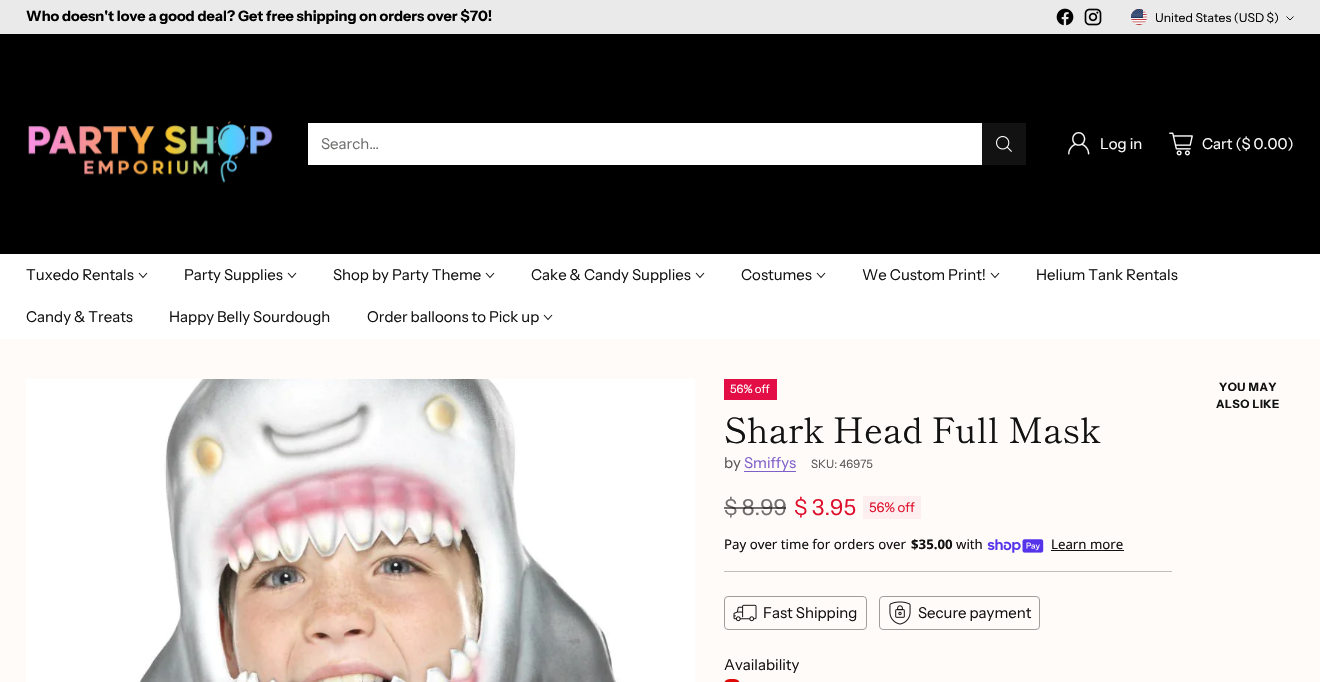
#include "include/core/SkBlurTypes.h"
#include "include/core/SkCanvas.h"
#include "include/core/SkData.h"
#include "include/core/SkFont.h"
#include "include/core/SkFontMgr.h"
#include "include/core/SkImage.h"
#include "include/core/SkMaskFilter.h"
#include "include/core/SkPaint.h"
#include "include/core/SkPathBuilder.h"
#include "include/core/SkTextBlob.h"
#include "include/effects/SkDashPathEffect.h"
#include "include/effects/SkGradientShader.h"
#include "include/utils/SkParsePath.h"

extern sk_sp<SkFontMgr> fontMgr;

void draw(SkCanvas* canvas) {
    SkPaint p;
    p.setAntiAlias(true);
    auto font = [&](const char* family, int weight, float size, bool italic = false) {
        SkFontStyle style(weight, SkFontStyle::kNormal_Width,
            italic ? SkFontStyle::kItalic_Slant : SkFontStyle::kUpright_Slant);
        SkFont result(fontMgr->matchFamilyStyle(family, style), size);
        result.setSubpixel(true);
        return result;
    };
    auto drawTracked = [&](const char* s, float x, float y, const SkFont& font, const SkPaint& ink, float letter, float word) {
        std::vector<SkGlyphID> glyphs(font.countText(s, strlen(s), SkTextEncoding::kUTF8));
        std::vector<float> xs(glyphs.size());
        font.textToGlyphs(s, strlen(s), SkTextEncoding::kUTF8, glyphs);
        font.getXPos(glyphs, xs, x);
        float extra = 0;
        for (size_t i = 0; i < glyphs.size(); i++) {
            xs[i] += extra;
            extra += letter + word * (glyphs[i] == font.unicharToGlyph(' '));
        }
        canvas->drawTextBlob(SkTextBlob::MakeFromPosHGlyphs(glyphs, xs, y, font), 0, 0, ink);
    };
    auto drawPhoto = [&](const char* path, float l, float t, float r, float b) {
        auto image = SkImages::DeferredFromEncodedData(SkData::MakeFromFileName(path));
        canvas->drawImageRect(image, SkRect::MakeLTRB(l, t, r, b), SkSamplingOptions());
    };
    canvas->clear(0xFFFFFBF9);
    p.setColor(0xFFEAEAEA);
    canvas->drawRect(SkRect::MakeLTRB(0, 0, 1320, 34), p);
    auto font1 = font("Instrument Sans", 700, 14.4f);
    p.setColor(0xFF000000);
    canvas->drawString("Who doesn't love a good deal? Get free shipping on orders over $70!", 26, 21, font1, p);
    drawPhoto("media/1.png", 1056, 8, 1074, 26);
    drawPhoto("media/2.png", 1084, 8, 1102, 26);
    drawPhoto("media/3.png", 1131, 9, 1147, 25);
    auto font2 = font("Instrument Sans", 400, 12.25f);
    canvas->drawString("United States (USD $)", 1155, 22, font2, p);
    p.setStyle(SkPaint::kStroke_Style);
    p.setStrokeWidth(0.9f);
    canvas->drawPath(SkPathBuilder().moveTo(1286.5f, 16.5f).lineTo(1290, 20).lineTo(1293.5f, 16.5f).detach(), p);
    p.setStyle(SkPaint::kFill_Style);
    canvas->drawRect(SkRect::MakeLTRB(0, 34, 1320, 254), p);
    drawPhoto("media/4.png", 28, 120, 273, 183);
    p.setStyle(SkPaint::kStroke_Style);
    p.setStrokeWidth(1);
    p.setColor(0xFFFFFFFF);
    canvas->drawRect(SkRect::MakeLTRB(308.5f, 123.5f, 1025.5f, 164.5f), p);
    p.setStyle(SkPaint::kFill_Style);
    canvas->drawRect(SkRect::MakeLTRB(309, 124, 982, 164), p);
    auto font3 = font("Instrument Sans", 400, 15);
    p.setColor(0xFF716F6E);
    canvas->drawString("Search…", 321, 149, font3, p);
    p.setColor(0xFF121212);
    canvas->drawRect(SkRect::MakeLTRB(982, 123, 1026, 165), p);
    drawPhoto("media/5.png", 996, 136, 1012, 152);
    drawPhoto("media/6.png", 1068, 132, 1090, 155);
    p.setColor(0xFFFFFFFF);
    canvas->drawString("Log in", 1100, 149, font3, p);
    drawPhoto("media/7.png", 1169, 132, 1193, 156);
    canvas->drawString("Cart ($ 0.00)", 1202, 149, font3, p);
    canvas->drawRect(SkRect::MakeLTRB(0, 254, 1320, 339), p);
    p.setColor(0xFF121212);
    canvas->drawString("Tuxedo Rentals", 26, 280, font3, p);
    p.setStyle(SkPaint::kStroke_Style);
    p.setStrokeWidth(1.1f);
    canvas->drawPath(SkPathBuilder().moveTo(139, 273).lineTo(143, 277.5f).lineTo(147, 273).detach(), p);
    p.setStyle(SkPaint::kFill_Style);
    canvas->drawString("Party Supplies", 184, 280, font3, p);
    p.setStyle(SkPaint::kStroke_Style);
    canvas->drawPath(SkPathBuilder().moveTo(288, 273).lineTo(292, 277.5f).lineTo(296, 273).detach(), p);
    p.setStyle(SkPaint::kFill_Style);
    canvas->drawString("Shop by Party Theme", 333, 280, font3, p);
    p.setStyle(SkPaint::kStroke_Style);
    canvas->drawPath(SkPathBuilder().moveTo(486, 273).lineTo(490, 277.5f).lineTo(494, 273).detach(), p);
    p.setStyle(SkPaint::kFill_Style);
    canvas->drawString("Cake & Candy Supplies", 531, 280, font3, p);
    p.setStyle(SkPaint::kStroke_Style);
    canvas->drawPath(SkPathBuilder().moveTo(696, 273).lineTo(700, 277.5f).lineTo(704, 273).detach(), p);
    p.setStyle(SkPaint::kFill_Style);
    canvas->drawString("Costumes", 741, 280, font3, p);
    p.setStyle(SkPaint::kStroke_Style);
    canvas->drawPath(SkPathBuilder().moveTo(817, 273).lineTo(821, 277.5f).lineTo(825, 273).detach(), p);
    p.setStyle(SkPaint::kFill_Style);
    canvas->drawString("We Custom Print!", 862, 280, font3, p);
    p.setStyle(SkPaint::kStroke_Style);
    canvas->drawPath(SkPathBuilder().moveTo(991, 273).lineTo(995, 277.5f).lineTo(999, 273).detach(), p);
    p.setStyle(SkPaint::kFill_Style);
    {
        const struct { const char* s; float x, y; } items[] = {
            {"Helium Tank Rentals", 1036, 280},
            {"Candy & Treats", 26, 322},
            {"Happy Belly Sourdough", 169, 322},
            {"Order balloons to Pick up", 367, 322},
        };
        for (auto [s, x, y] : items) {
            canvas->drawString(s, x, y, font3, p);
        }
    }
    p.setStyle(SkPaint::kStroke_Style);
    canvas->drawPath(SkPathBuilder().moveTo(544, 315).lineTo(548, 319.5f).lineTo(552, 315).detach(), p);
    drawPhoto("media/8.png", 26, 379, 695, 682);
    p.setStyle(SkPaint::kFill_Style);
    p.setColor(0xFFC6BCB9);
    canvas->drawRect(SkRect::MakeLTRB(724, 571, 1172, 572), p);
    p.setColor(0xFFE40E47);
    canvas->drawRect(SkRect::MakeLTRB(724, 379, 777, 400), p);
    auto font4 = font("Instrument Sans", 400, 11.5f);
    p.setColor(0xFFFFFFFF);
    canvas->drawString("56% off", 730, 393, font4, p);
    auto font5 = font("Shippori Mincho", 400, 35);
    p.setColor(0xFF121212);
    canvas->drawString("Shark Head Full Mask", 724, 443, font5, p);
    p.setColor(0xFF595857);
    canvas->drawString("by", 724, 468, font3, p);
    p.setColor(0xFF7F5FCA);
    canvas->drawRect(SkRect::MakeLTRB(744, 471, 796, 472), p);
    canvas->drawString("Smiffys", 744, 468, font3, p);
    p.setColor(0xFF595857);
    canvas->drawString("SKU: 46975", 811, 468, font4, p);
    auto font6 = font("Instrument Sans", 400, 22);
    p.setColor(0xFF716F6E);
    canvas->drawString("$ 8.99", 724, 515, font6, p);
    p.setColor(0x99121212);
    canvas->drawRect(SkRect::MakeLTRB(724, 507, 786, 509), p);
    p.setColor(0xFFDE0F2B);
    canvas->drawString("$ 3.95", 794, 515, font6, p);
    p.setColor(0xFFFDEFEF);
    canvas->drawRect(SkRect::MakeLTRB(863, 496, 921, 519), p);
    auto font7 = font("Instrument Sans", 400, 13.25f);
    p.setColor(0xFFDE0F2B);
    canvas->drawString("56% off", 869, 512, font7, p);
    auto font8 = font("Noto Sans", 400, 13.25f);
    p.setColor(0xFF121212);
    canvas->drawString("Pay over time for orders over", 724, 549, font8, p);
    auto font9 = font("Noto Sans", 700, 13.25f);
    canvas->drawString("$35.00", 911, 549, font9, p);
    canvas->drawString("with", 956, 549, font8, p);
    drawPhoto("media/9.png", 987, 539, 1044, 553);
    canvas->drawString("Learn more", 1051, 549, font8, p);
    canvas->drawRect(SkRect::MakeLTRB(1051, 550, 1124, 551), p);
    p.setStyle(SkPaint::kStroke_Style);
    p.setStrokeWidth(1);
    p.setColor(0xFFA09E9D);
    canvas->drawRoundRect(SkRect::MakeLTRB(724.5f, 596.5f, 866.5f, 629.5f), 3.5f, 3.5f, p);
    drawPhoto("media/10.png", 733, 604, 757, 622);
    p.setStyle(SkPaint::kFill_Style);
    p.setColor(0xFF121212);
    canvas->drawString("Fast Shipping", 763, 618, font3, p);
    p.setStyle(SkPaint::kStroke_Style);
    p.setColor(0xFFA09E9D);
    canvas->drawRoundRect(SkRect::MakeLTRB(879.5f, 596.5f, 1039.5f, 629.5f), 3.5f, 3.5f, p);
    drawPhoto("media/11.png", 889, 601, 911, 625);
    p.setStyle(SkPaint::kFill_Style);
    p.setColor(0xFF121212);
    canvas->drawString("Secure payment", 918, 618, font3, p);
    canvas->drawString("Availability", 724, 670, font3, p);
    p.setColor(0xFFE10808);
    canvas->drawRoundRect(SkRect::MakeLTRB(724, 679, 740, 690), 8, 8, p);
    auto font10 = font("Instrument Sans", 700, 11.5f);
    p.setColor(0xFF121212);
    drawTracked("YOU MAY", 1219, 391, font10, p, 0.5f, 0);
    drawTracked("ALSO LIKE", 1216, 408, font10, p, 0.5f, 0);
}
